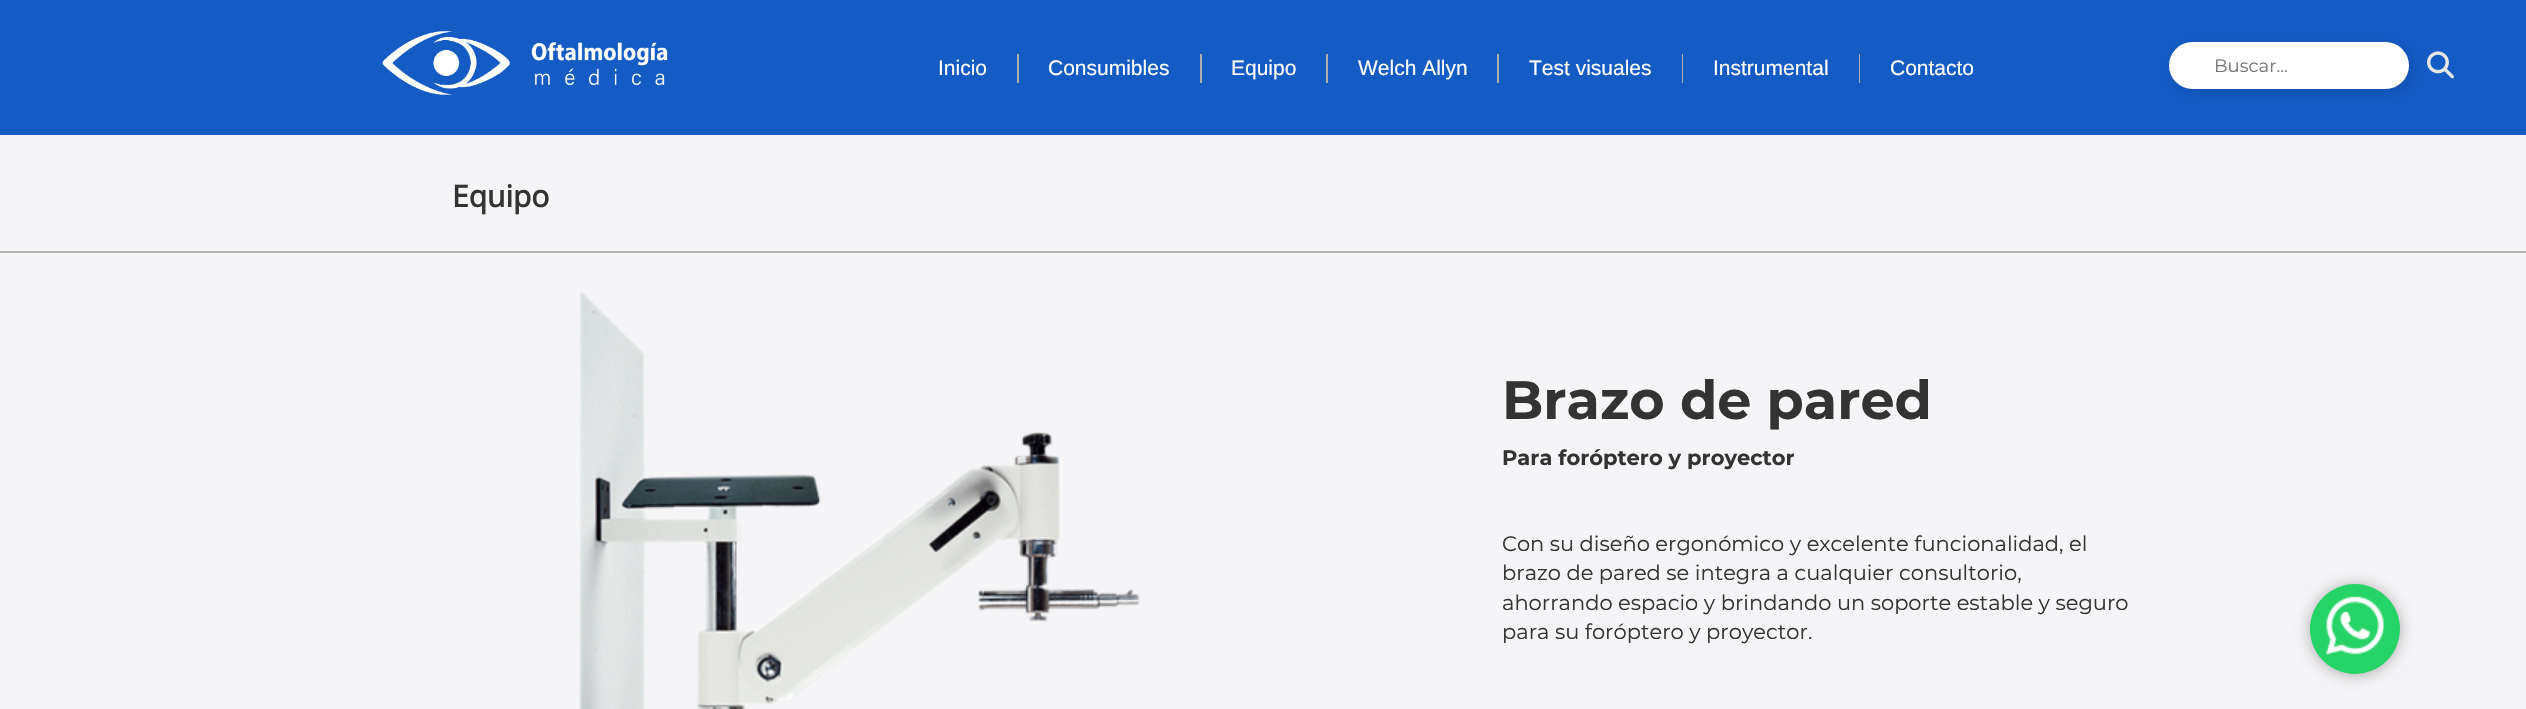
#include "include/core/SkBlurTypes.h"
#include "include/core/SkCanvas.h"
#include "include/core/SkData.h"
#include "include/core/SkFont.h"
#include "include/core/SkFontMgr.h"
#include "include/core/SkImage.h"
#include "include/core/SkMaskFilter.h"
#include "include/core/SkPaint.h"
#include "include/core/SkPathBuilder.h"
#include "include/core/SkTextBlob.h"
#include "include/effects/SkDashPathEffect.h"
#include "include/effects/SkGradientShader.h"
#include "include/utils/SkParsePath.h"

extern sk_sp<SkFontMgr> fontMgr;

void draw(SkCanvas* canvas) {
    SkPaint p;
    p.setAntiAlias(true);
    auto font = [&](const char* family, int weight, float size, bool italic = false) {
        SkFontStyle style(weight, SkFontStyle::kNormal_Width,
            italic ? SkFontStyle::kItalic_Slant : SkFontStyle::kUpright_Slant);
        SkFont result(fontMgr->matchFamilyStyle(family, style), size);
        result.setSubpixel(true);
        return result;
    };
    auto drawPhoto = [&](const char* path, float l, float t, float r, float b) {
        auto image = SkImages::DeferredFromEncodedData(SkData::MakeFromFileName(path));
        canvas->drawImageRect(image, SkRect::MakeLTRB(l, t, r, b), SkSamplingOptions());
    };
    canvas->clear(0xFFF5F5F7);
    p.setColor(0xFF145BC4);
    canvas->drawRect(SkRect::MakeLTRB(0, 0, 2526, 135), p);
    drawPhoto("media/1.png", 382, 31, 668, 95);
    p.setColor(0xFFAEAEAE);
    canvas->drawRect(SkRect::MakeLTRB(1017, 54, 1019, 83), p);
    auto font1 = font("Liberation Sans", 400, 21);
    p.setColor(0xFFFFFFFF);
    canvas->drawString("Inicio", 938, 75, font1, p);
    p.setColor(0xFFAEAEAE);
    canvas->drawRect(SkRect::MakeLTRB(1200, 54, 1202, 83), p);
    p.setColor(0xFFFFFFFF);
    canvas->drawString("Consumibles", 1048, 75, font1, p);
    p.setColor(0xFFAEAEAE);
    canvas->drawRect(SkRect::MakeLTRB(1326, 54, 1328, 83), p);
    p.setColor(0xFFFFFFFF);
    canvas->drawString("Equipo", 1231, 75, font1, p);
    p.setColor(0xFFAEAEAE);
    canvas->drawRect(SkRect::MakeLTRB(1497, 54, 1499, 83), p);
    p.setColor(0xFFFFFFFF);
    canvas->drawString("Welch Allyn", 1358, 75, font1, p);
    p.setColor(0xFFAEAEAE);
    canvas->drawRect(SkRect::MakeLTRB(1682, 54, 1683, 83), p);
    p.setColor(0xFFFFFFFF);
    canvas->drawString("Test visuales", 1529, 75, font1, p);
    p.setColor(0xFFAEAEAE);
    canvas->drawRect(SkRect::MakeLTRB(1859, 54, 1860, 83), p);
    p.setColor(0xFFFFFFFF);
    canvas->drawString("Instrumental", 1713, 75, font1, p);
    canvas->drawString("Contacto", 1890, 75, font1, p);
    p.setColor(0x1A000000);
    p.setMaskFilter(SkMaskFilter::MakeBlur(kNormal_SkBlurStyle, 7.5f));
    canvas->drawRoundRect(SkRect::MakeLTRB(2174, 47, 2414, 93), 23, 23, p);
    p.setMaskFilter(nullptr);
    p.setColor(0xFFFFFFFF);
    canvas->drawRoundRect(SkRect::MakeLTRB(2169, 42, 2409, 89), 23.5f, 23.5f, p);
    auto font2 = font("Montserrat", 400, 18);
    p.setColor(0xFF757575);
    canvas->drawString("Buscar...", 2214, 72, font2, p);
    drawPhoto("media/2.png", 2427, 51, 2454, 79);
    auto font3 = font("Open Sans", 700, 30);
    p.setColor(0xFF333333);
    canvas->drawString("Equipo", 452, 207, font3, p);
    p.setColor(0xFFB2B2B2);
    canvas->drawRect(SkRect::MakeLTRB(0, 251, 2526, 253), p);
    drawPhoto("media/3.png", 579, 291, 1140, 709);
    auto font4 = font("Montserrat", 700, 54);
    p.setColor(0xFF333333);
    canvas->drawString("Brazo de pared", 1502, 419, font4, p);
    auto font5 = font("Montserrat", 700, 21);
    canvas->drawString("Para foróptero y proyector", 1502, 465, font5, p);
    auto font6 = font("Montserrat", 400, 21);
    {
        const struct { const char* s; float x, y; } items[] = {
            {"Con su diseño ergonómico y excelente funcionalidad, el", 1502, 551},
            {"brazo de pared se integra a cualquier consultorio,", 1502, 580},
            {"ahorrando espacio y brindando un soporte estable y seguro", 1502, 610},
            {"para su foróptero y proyector.", 1502, 639},
        };
        for (auto [s, x, y] : items) {
            canvas->drawString(s, x, y, font6, p);
        }
    }
    p.setColor(0x4D000000);
    p.setMaskFilter(SkMaskFilter::MakeBlur(kNormal_SkBlurStyle, 7.5f));
    canvas->drawRoundRect(SkRect::MakeLTRB(2310, 585, 2400, 675), 45, 45, p);
    p.setMaskFilter(nullptr);
    p.setColor(0xFF25D366);
    canvas->drawCircle(2355, 629, 45, p);
    drawPhoto("media/4.png", 2326, 596, 2384, 655);
}
